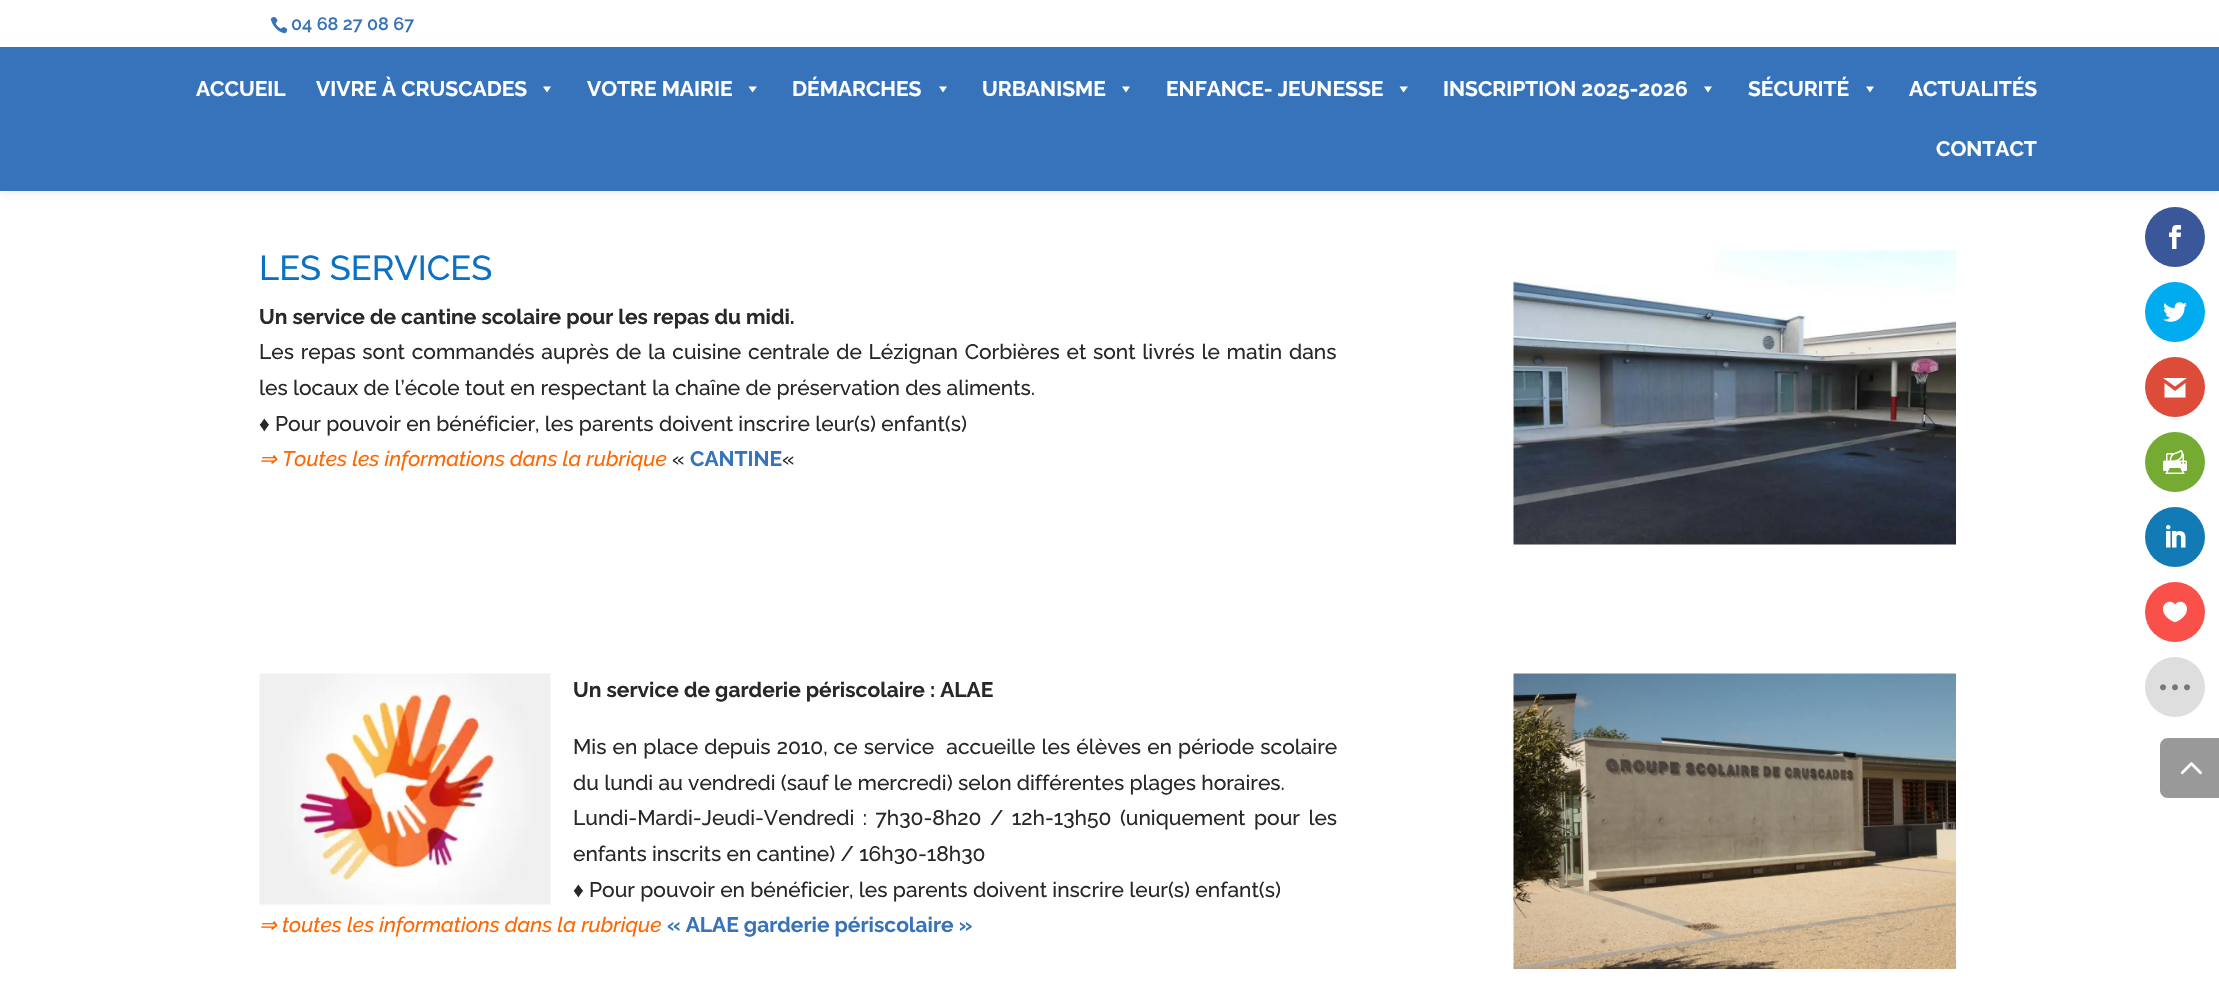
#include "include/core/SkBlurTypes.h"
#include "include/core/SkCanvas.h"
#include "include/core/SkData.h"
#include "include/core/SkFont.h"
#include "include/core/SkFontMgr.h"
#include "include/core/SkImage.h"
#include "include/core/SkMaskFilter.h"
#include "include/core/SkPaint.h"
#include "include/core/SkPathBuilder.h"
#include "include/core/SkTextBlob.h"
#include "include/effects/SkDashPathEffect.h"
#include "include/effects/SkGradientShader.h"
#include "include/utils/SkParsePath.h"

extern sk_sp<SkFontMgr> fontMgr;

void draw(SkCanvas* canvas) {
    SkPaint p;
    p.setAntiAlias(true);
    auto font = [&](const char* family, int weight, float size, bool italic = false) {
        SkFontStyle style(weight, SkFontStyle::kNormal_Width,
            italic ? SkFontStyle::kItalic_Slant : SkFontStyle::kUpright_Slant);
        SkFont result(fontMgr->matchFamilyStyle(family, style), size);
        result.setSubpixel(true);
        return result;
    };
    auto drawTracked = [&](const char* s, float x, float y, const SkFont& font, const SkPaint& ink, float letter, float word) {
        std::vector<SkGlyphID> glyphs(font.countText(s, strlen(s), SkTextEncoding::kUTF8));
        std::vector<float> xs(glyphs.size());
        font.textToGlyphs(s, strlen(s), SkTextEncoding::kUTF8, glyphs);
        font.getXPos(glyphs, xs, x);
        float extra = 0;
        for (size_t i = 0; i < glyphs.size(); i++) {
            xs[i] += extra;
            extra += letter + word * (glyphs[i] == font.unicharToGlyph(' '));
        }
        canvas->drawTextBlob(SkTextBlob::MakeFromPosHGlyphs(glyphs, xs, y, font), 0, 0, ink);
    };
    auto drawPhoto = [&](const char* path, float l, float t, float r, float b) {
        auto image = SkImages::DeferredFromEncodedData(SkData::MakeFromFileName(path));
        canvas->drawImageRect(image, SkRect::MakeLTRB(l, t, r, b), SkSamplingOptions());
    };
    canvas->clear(0xFFFFFFFF);
    p.setColor(0x1A000000);
    p.setMaskFilter(SkMaskFilter::MakeBlur(kNormal_SkBlurStyle, 5));
    canvas->drawRect(SkRect::MakeLTRB(0, 47, 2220, 191), p);
    p.setMaskFilter(nullptr);
    p.setColor(0xFFFFFFFF);
    canvas->drawRect(SkRect::MakeLTRB(0, 41, 2219, 47), p);
    drawPhoto("media/1.png", 270, 16, 288, 34);
    auto font1 = font("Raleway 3", 100, 18);
    p.setColor(0xFF3773BA);
    canvas->drawString("04 68 27 08 67", 291, 30, font1, p);
    canvas->drawRect(SkRect::MakeLTRB(0, 47, 2219, 191), p);
    auto font2 = font("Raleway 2", 100, 21);
    p.setColor(0xFFFFFFFF);
    canvas->drawString("ACCUEIL", 196, 96, font2, p);
    canvas->drawString("VIVRE À CRUSCADES", 316, 96, font2, p);
    canvas->drawPath(SkPathBuilder().moveTo(551, 86.5f).lineTo(547, 92.5f).lineTo(543, 86.5f).close().detach(), p);
    canvas->drawString("VOTRE MAIRIE", 587, 96, font2, p);
    canvas->drawPath(SkPathBuilder().moveTo(757, 86.5f).lineTo(752.5f, 92.5f).lineTo(748.5f, 86.5f).close().detach(), p);
    canvas->drawString("DÉMARCHES", 792, 96, font2, p);
    canvas->drawPath(SkPathBuilder().moveTo(947, 86.5f).lineTo(943, 92.5f).lineTo(939, 86.5f).close().detach(), p);
    canvas->drawString("URBANISME", 982, 96, font2, p);
    canvas->drawPath(SkPathBuilder().moveTo(1130, 86.5f).lineTo(1126, 92.5f).lineTo(1122, 86.5f).close().detach(), p);
    canvas->drawString("ENFANCE- JEUNESSE", 1166, 96, font2, p);
    canvas->drawPath(SkPathBuilder().moveTo(1408, 86.5f).lineTo(1403.5f, 92.5f).lineTo(1399.5f, 86.5f).close().detach(), p);
    canvas->drawString("INSCRIPTION 2025-2026", 1443, 96, font2, p);
    canvas->drawPath(SkPathBuilder().moveTo(1712, 86.5f).lineTo(1708, 92.5f).lineTo(1704, 86.5f).close().detach(), p);
    canvas->drawString("SÉCURITÉ", 1748, 96, font2, p);
    canvas->drawPath(SkPathBuilder().moveTo(1874, 86.5f).lineTo(1870, 92.5f).lineTo(1866, 86.5f).close().detach(), p);
    canvas->drawString("ACTUALITÉS", 1909, 96, font2, p);
    canvas->drawString("CONTACT", 1936, 156, font2, p);
    auto font3 = font("Raleway", 100, 34.5f);
    p.setColor(0xFF0C71C3);
    canvas->drawString("LES SERVICES", 259, 280, font3, p);
    p.setColor(0xFF282828);
    canvas->drawString("Un service de cantine scolaire pour les repas du midi.", 259, 324, font2, p);
    auto font4 = font("Raleway", 100, 21);
    drawTracked("Les repas sont commandés auprès de la cuisine centrale de Lézignan Corbières et sont livrés le matin dans", 259, 359, font4, p, 0, 1.4f);
    canvas->drawString("les locaux de l’école tout en respectant la chaîne de préservation des aliments.", 259, 395, font4, p);
    auto font5 = font("Liberation Sans", 400, 21);
    canvas->drawString("♦", 259, 431, font5, p);
    canvas->drawString("Pour pouvoir en bénéficier, les parents doivent inscrire leur(s) enfant(s)", 275, 431, font4, p);
    auto font6 = font("DejaVu Sans", 400, 21, true);
    p.setColor(0xFFFF6600);
    canvas->drawString("⇒", 259, 466, font6, p);
    auto font7 = font("Raleway", 100, 21, true);
    canvas->drawString("Toutes les informations dans la rubrique", 282, 466, font7, p);
    p.setColor(0xFF282828);
    canvas->drawString("«", 672, 466, font4, p);
    p.setColor(0xFF3773BA);
    canvas->drawString("CANTINE", 690, 466, font2, p);
    p.setColor(0xFF282828);
    canvas->drawString("«", 782, 466, font4, p);
    drawPhoto("media/2.png", 1513, 250, 1956, 545);
    drawPhoto("media/3.png", 259, 673, 551, 905);
    canvas->drawString("Un service de garderie périscolaire : ALAE", 573, 697, font2, p);
    drawTracked("Mis en place depuis 2010, ce service  accueille les élèves en période scolaire", 573, 754, font4, p, 0, 0.75f);
    canvas->drawString("du lundi au vendredi (sauf le mercredi) selon différentes plages horaires.", 573, 790, font4, p);
    drawTracked("Lundi-Mardi-Jeudi-Vendredi : 7h30-8h20 / 12h-13h50 (uniquement pour les", 573, 825, font4, p, 0, 3.25f);
    canvas->drawString("enfants inscrits en cantine) / 16h30-18h30", 573, 861, font4, p);
    canvas->drawString("♦", 573, 897, font5, p);
    canvas->drawString("Pour pouvoir en bénéficier, les parents doivent inscrire leur(s) enfant(s)", 589, 897, font4, p);
    p.setColor(0xFFFF6600);
    canvas->drawString("⇒", 259, 932, font6, p);
    canvas->drawString("toutes les informations dans la rubrique", 282, 932, font7, p);
    p.setColor(0xFF3773BA);
    canvas->drawString("« ALAE garderie périscolaire »", 667, 932, font2, p);
    drawPhoto("media/4.png", 1513, 673, 1956, 969);
    p.setColor(0xFF3A579A);
    canvas->drawCircle(2175, 237, 30, p);
    drawPhoto("media/5.png", 2169, 225, 2181, 249);
    p.setColor(0xFF00ABF0);
    canvas->drawCircle(2175, 312, 30, p);
    drawPhoto("media/6.png", 2163, 302, 2187, 322);
    p.setColor(0xFFDD4B39);
    canvas->drawCircle(2175, 387, 30, p);
    p.setColor(0xFFFFFFFF);
    canvas->drawPath(SkPathBuilder().moveTo(2187, 378).lineTo(2163, 378).lineTo(2175, 386.5f).close().moveTo(2175, 391).lineTo(2164.5f, 383).lineTo(2164.5f, 397.5f).lineTo(2185.5f, 397.5f).lineTo(2185.5f, 383).close().detach(), p);
    p.setColor(0xFF75AA33);
    canvas->drawCircle(2175, 462, 30, p);
    drawPhoto("media/7.png", 2163, 450, 2187, 474);
    p.setColor(0xFF127BB6);
    canvas->drawCircle(2175, 537, 30, p);
    drawPhoto("media/8.png", 2166, 525, 2186, 548);
    p.setColor(0xFFF95149);
    canvas->drawCircle(2175, 612, 30, p);
    drawPhoto("media/9.png", 2163, 601, 2187, 623);
    p.setColor(0xFFDEDEDE);
    canvas->drawCircle(2175, 687, 30, p);
    drawPhoto("media/10.png", 2160, 684, 2190, 691);
    p.setColor(0xFF999999);
    canvas->drawPath(SkPathBuilder().moveTo(2168, 738).lineTo(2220, 738).lineTo(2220, 798).lineTo(2168, 798).cubicTo(2163.5f, 798, 2160, 794.5f, 2160, 790).lineTo(2160, 746).cubicTo(2160, 741.5f, 2163.5f, 738, 2168, 738).close().detach(), p);
    drawPhoto("media/11.png", 2180, 762, 2202, 775);
}
